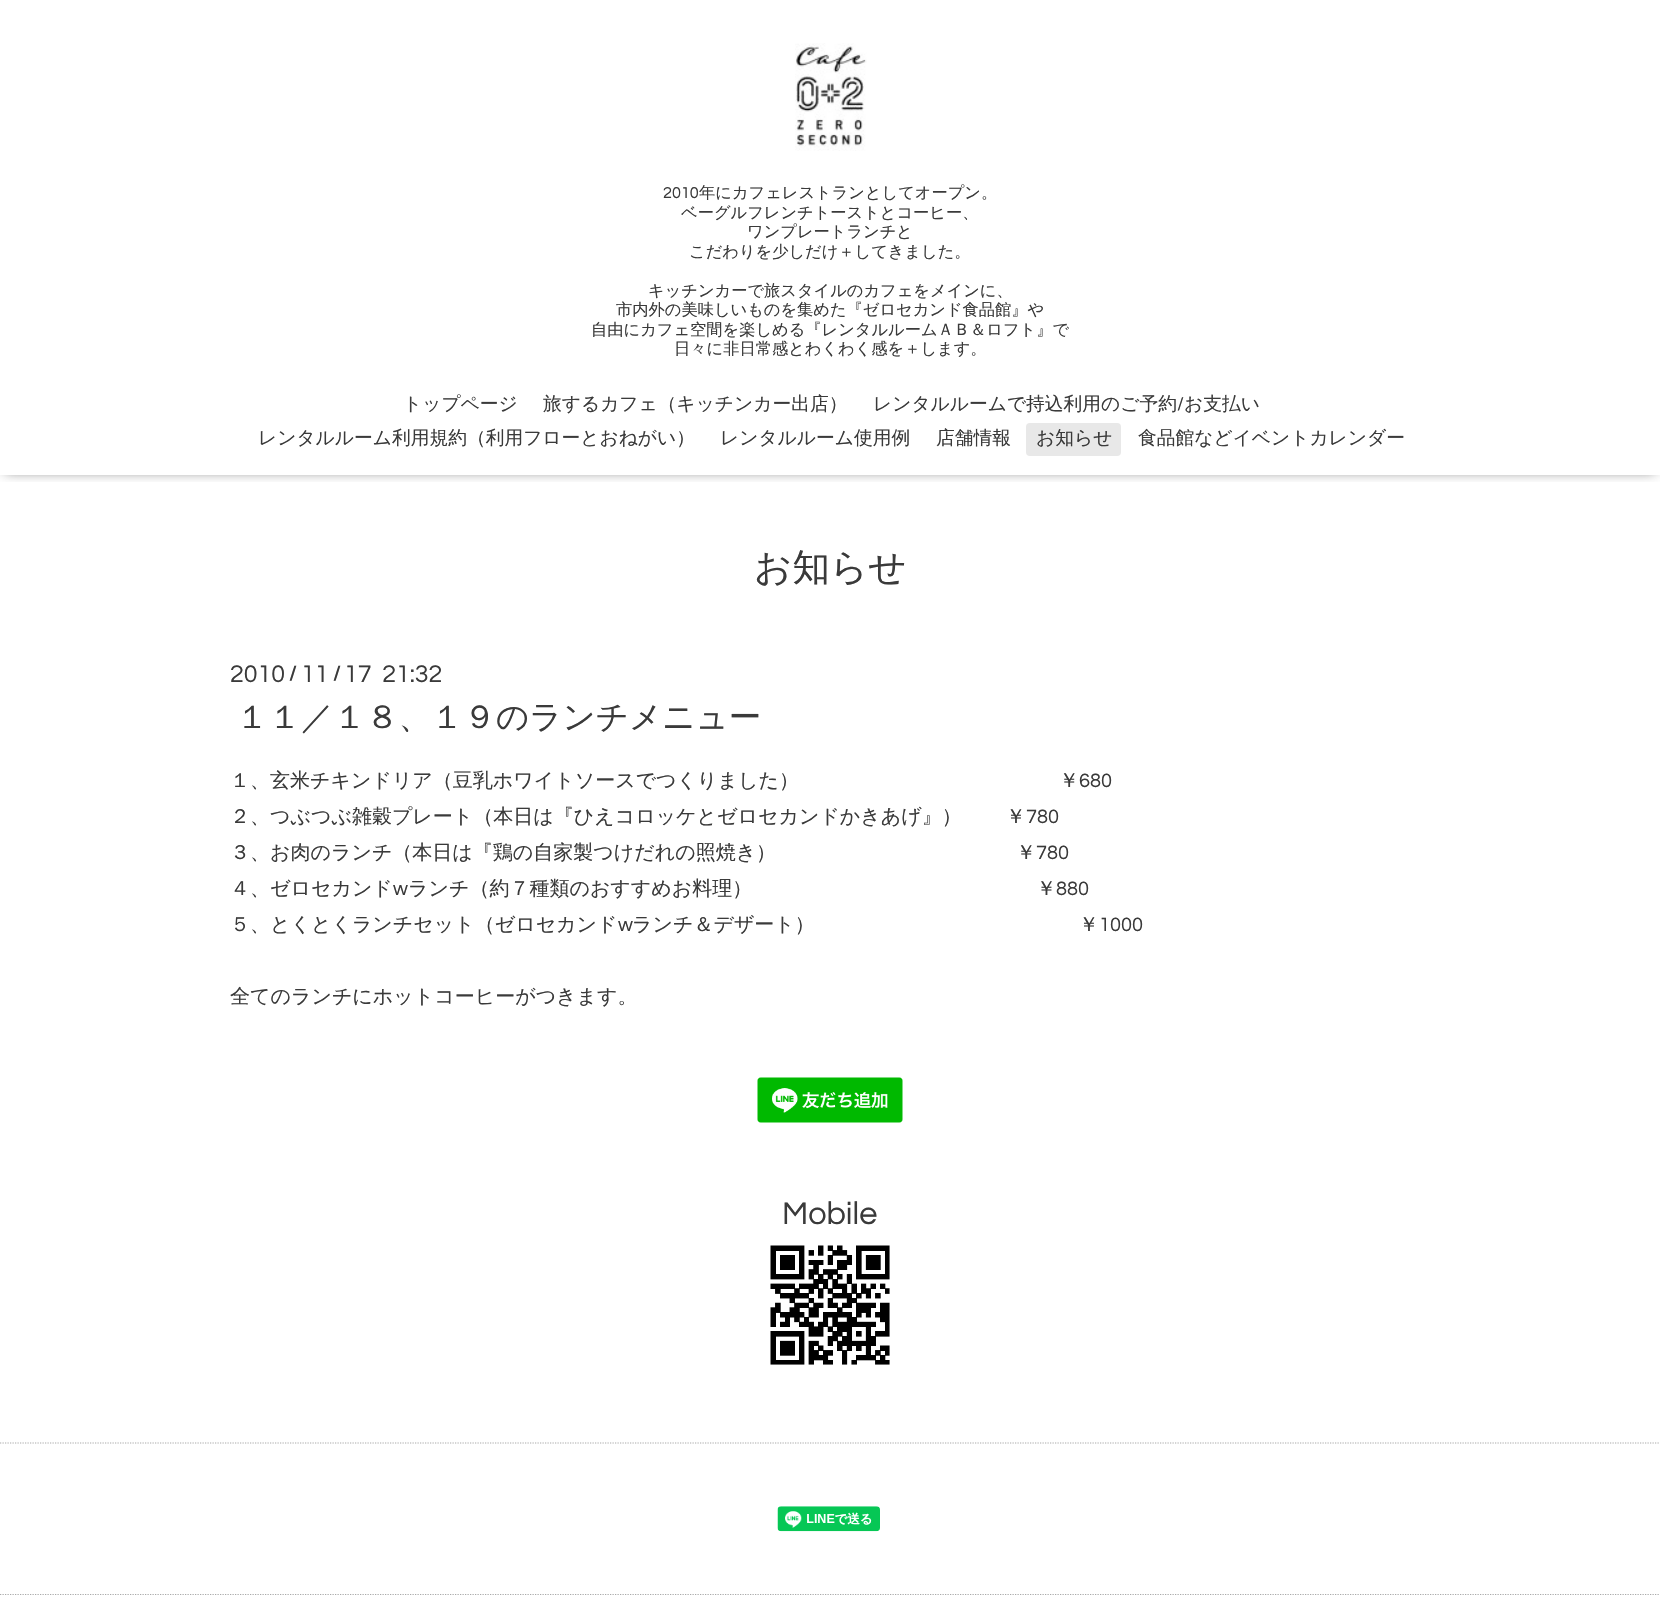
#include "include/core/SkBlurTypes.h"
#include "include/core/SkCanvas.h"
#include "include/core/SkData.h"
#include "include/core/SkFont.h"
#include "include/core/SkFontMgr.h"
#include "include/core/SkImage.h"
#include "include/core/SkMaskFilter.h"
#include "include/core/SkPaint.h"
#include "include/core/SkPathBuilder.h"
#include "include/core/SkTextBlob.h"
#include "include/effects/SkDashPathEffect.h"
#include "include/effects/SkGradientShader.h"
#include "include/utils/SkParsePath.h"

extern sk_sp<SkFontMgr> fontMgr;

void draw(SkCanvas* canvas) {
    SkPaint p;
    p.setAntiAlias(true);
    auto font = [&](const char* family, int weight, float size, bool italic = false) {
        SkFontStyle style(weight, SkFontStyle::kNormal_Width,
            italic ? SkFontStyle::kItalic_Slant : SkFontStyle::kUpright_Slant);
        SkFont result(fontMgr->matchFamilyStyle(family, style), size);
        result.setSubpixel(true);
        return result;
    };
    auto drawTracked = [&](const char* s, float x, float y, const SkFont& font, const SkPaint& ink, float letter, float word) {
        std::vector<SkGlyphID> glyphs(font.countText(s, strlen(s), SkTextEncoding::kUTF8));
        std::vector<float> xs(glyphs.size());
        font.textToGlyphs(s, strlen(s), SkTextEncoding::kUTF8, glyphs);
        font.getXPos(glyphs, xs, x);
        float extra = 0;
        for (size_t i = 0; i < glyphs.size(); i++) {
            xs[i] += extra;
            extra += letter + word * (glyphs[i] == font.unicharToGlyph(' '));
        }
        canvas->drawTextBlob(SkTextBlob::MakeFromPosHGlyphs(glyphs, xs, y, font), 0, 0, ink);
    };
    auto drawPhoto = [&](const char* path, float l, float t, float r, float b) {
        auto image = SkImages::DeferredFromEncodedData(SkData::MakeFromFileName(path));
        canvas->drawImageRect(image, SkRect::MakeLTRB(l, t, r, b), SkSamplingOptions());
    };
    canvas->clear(0xFFFFFFFF);
    canvas->save();
    canvas->clipRect(SkRect::MakeLTRB(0, 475, 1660, 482));
    p.setColor(0x99000000);
    p.setMaskFilter(SkMaskFilter::MakeBlur(kNormal_SkBlurStyle, 6));
    canvas->drawRect(SkRect::MakeLTRB(5, 6, 1655, 471), p);
    p.setMaskFilter(nullptr);
    canvas->restore();
    drawPhoto("media/1.png", 795, 43, 867, 151);
    auto font1 = font("Questrial", 400, 16.25f);
    p.setColor(0xFF3A3A3A);
    canvas->drawString("2010", 663, 198, font1, p);
    auto font2 = font("WenQuanYi Zen Hei", 500, 16.25f);
    {
        const struct { const char* s; float x, y; } items[] = {
            {"年にカフェレストランとしてオープン。", 699, 198},
            {"ベーグルフレンチトーストとコーヒー、", 681, 218},
            {"ワンプレートランチと", 747, 237},
            {"こだわりを少しだけ＋してきました。", 689, 257},
            {"キッチンカーで旅スタイルのカフェをメインに、", 648, 296},
            {"市内外の美味しいものを集めた『ゼロセカンド食品館』や", 616, 315},
            {"自由にカフェ空間を楽しめる『レンタルルームＡＢ＆ロフト』で", 591, 335},
            {"日々に非日常感とわくわく感を＋します。", 674, 354},
        };
        for (auto [s, x, y] : items) {
            canvas->drawString(s, x, y, font2, p);
        }
    }
    auto font3 = font("WenQuanYi Zen Hei", 500, 18.75f);
    {
        const struct { const char* s; float x, y; } items[] = {
            {"トップページ", 403, 410},
            {"旅するカフェ（キッチンカー出店）", 543, 410},
            {"レンタルルームで持込利用のご予約", 873, 410},
        };
        for (auto [s, x, y] : items) {
            canvas->drawString(s, x, y, font3, p);
        }
    }
    auto font4 = font("Questrial", 400, 18.75f);
    canvas->drawString("/", 1177, 410, font4, p);
    {
        const struct { const char* s; float x, y; } items[] = {
            {"お支払い", 1184, 410},
            {"レンタルルーム利用規約（利用フローとおねがい）", 258, 444},
            {"レンタルルーム使用例", 720, 444},
            {"店舗情報", 936, 444},
        };
        for (auto [s, x, y] : items) {
            canvas->drawString(s, x, y, font3, p);
        }
    }
    p.setColor(0xFFE8E8E8);
    canvas->drawRoundRect(SkRect::MakeLTRB(1026, 423, 1121, 456), 4, 4, p);
    p.setColor(0xFF3A3A3A);
    canvas->drawString("お知らせ", 1036, 444, font3, p);
    canvas->drawString("食品館などイベントカレンダー", 1138, 444, font3, p);
    auto font5 = font("WenQuanYi Zen Hei", 500, 37.5f);
    canvas->drawString("お知らせ", 754, 580, font5, p);
    auto font6 = font("Questrial", 400, 25);
    canvas->drawString("2010", 230, 682, font6, p);
    auto font7 = font("Questrial", 700, 20);
    canvas->drawString("/", 289, 680, font7, p);
    canvas->drawString("11", 301, 682, font6, p);
    canvas->drawString("/", 333, 680, font7, p);
    canvas->drawString("17  21:32", 344, 682, font6, p);
    auto font8 = font("WenQuanYi Zen Hei", 500, 32.5f);
    canvas->drawString("１１／１８、１９のランチメニュー", 236, 728, font8, p);
    auto font9 = font("WenQuanYi Zen Hei", 500, 20);
    canvas->drawString("１、玄米チキンドリア（豆乳ホワイトソースでつくりました）　　　　　　　　　　　　　￥", 230, 787, font9, p);
    auto font10 = font("Questrial", 400, 20);
    canvas->drawString("680", 1079, 787, font10, p);
    drawTracked("２、つぶつぶ雑穀プレート（本日は『ひえコロッケとゼロセカンドかきあげ』）　　 ￥", 230, 823, font9, p, 0, -2);
    canvas->drawString("780", 1026, 823, font10, p);
    canvas->drawString("３、お肉のランチ（本日は『鶏の自家製つけだれの照焼き）　　　　　　　　　　　　￥", 230, 859, font9, p);
    canvas->drawString("780", 1036, 859, font10, p);
    canvas->drawString("４、ゼロセカンド", 230, 895, font9, p);
    canvas->drawString("w", 393, 895, font10, p);
    drawTracked("ランチ（約７種類のおすすめお料理）　　　　　　　　　　　　　　 ￥", 408, 895, font9, p, 0, -2);
    canvas->drawString("880", 1056, 895, font10, p);
    canvas->drawString("５、とくとくランチセット（ゼロセカンド", 230, 931, font9, p);
    canvas->drawString("w", 618, 931, font10, p);
    drawTracked("ランチ＆デザート）　　　　　　　　　　　　　 ￥", 632, 931, font9, p, 0, -2);
    canvas->drawString("1000", 1099, 931, font10, p);
    canvas->drawString("全てのランチにホットコーヒーがつきます。", 230, 1003, font9, p);
    drawPhoto("media/2.png", 757, 1077, 903, 1123);
    auto font11 = font("Questrial", 400, 32.5f);
    canvas->drawString("Mobile", 782, 1224, font11, p);
    drawPhoto("media/3.png", 770, 1245, 890, 1365);
    p.setStyle(SkPaint::kStroke_Style);
    p.setStrokeWidth(1.2f);
    p.setColor(0xFFA9A9A9);
    p.setPathEffect(SkDashPathEffect::Make({{1.25f, 1.25f}}, 0));
    canvas->drawPath(SkPathBuilder().moveTo(0, 1443).lineTo(1660, 1443).detach(), p);
    p.setPathEffect(nullptr);
    drawPhoto("media/4.png", 777, 1506, 880, 1532);
    p.setPathEffect(SkDashPathEffect::Make({{1.25f, 1.25f}}, 0));
    canvas->drawPath(SkPathBuilder().moveTo(0, 1594.5f).lineTo(1660, 1594.5f).detach(), p);
    p.setPathEffect(nullptr);
}
